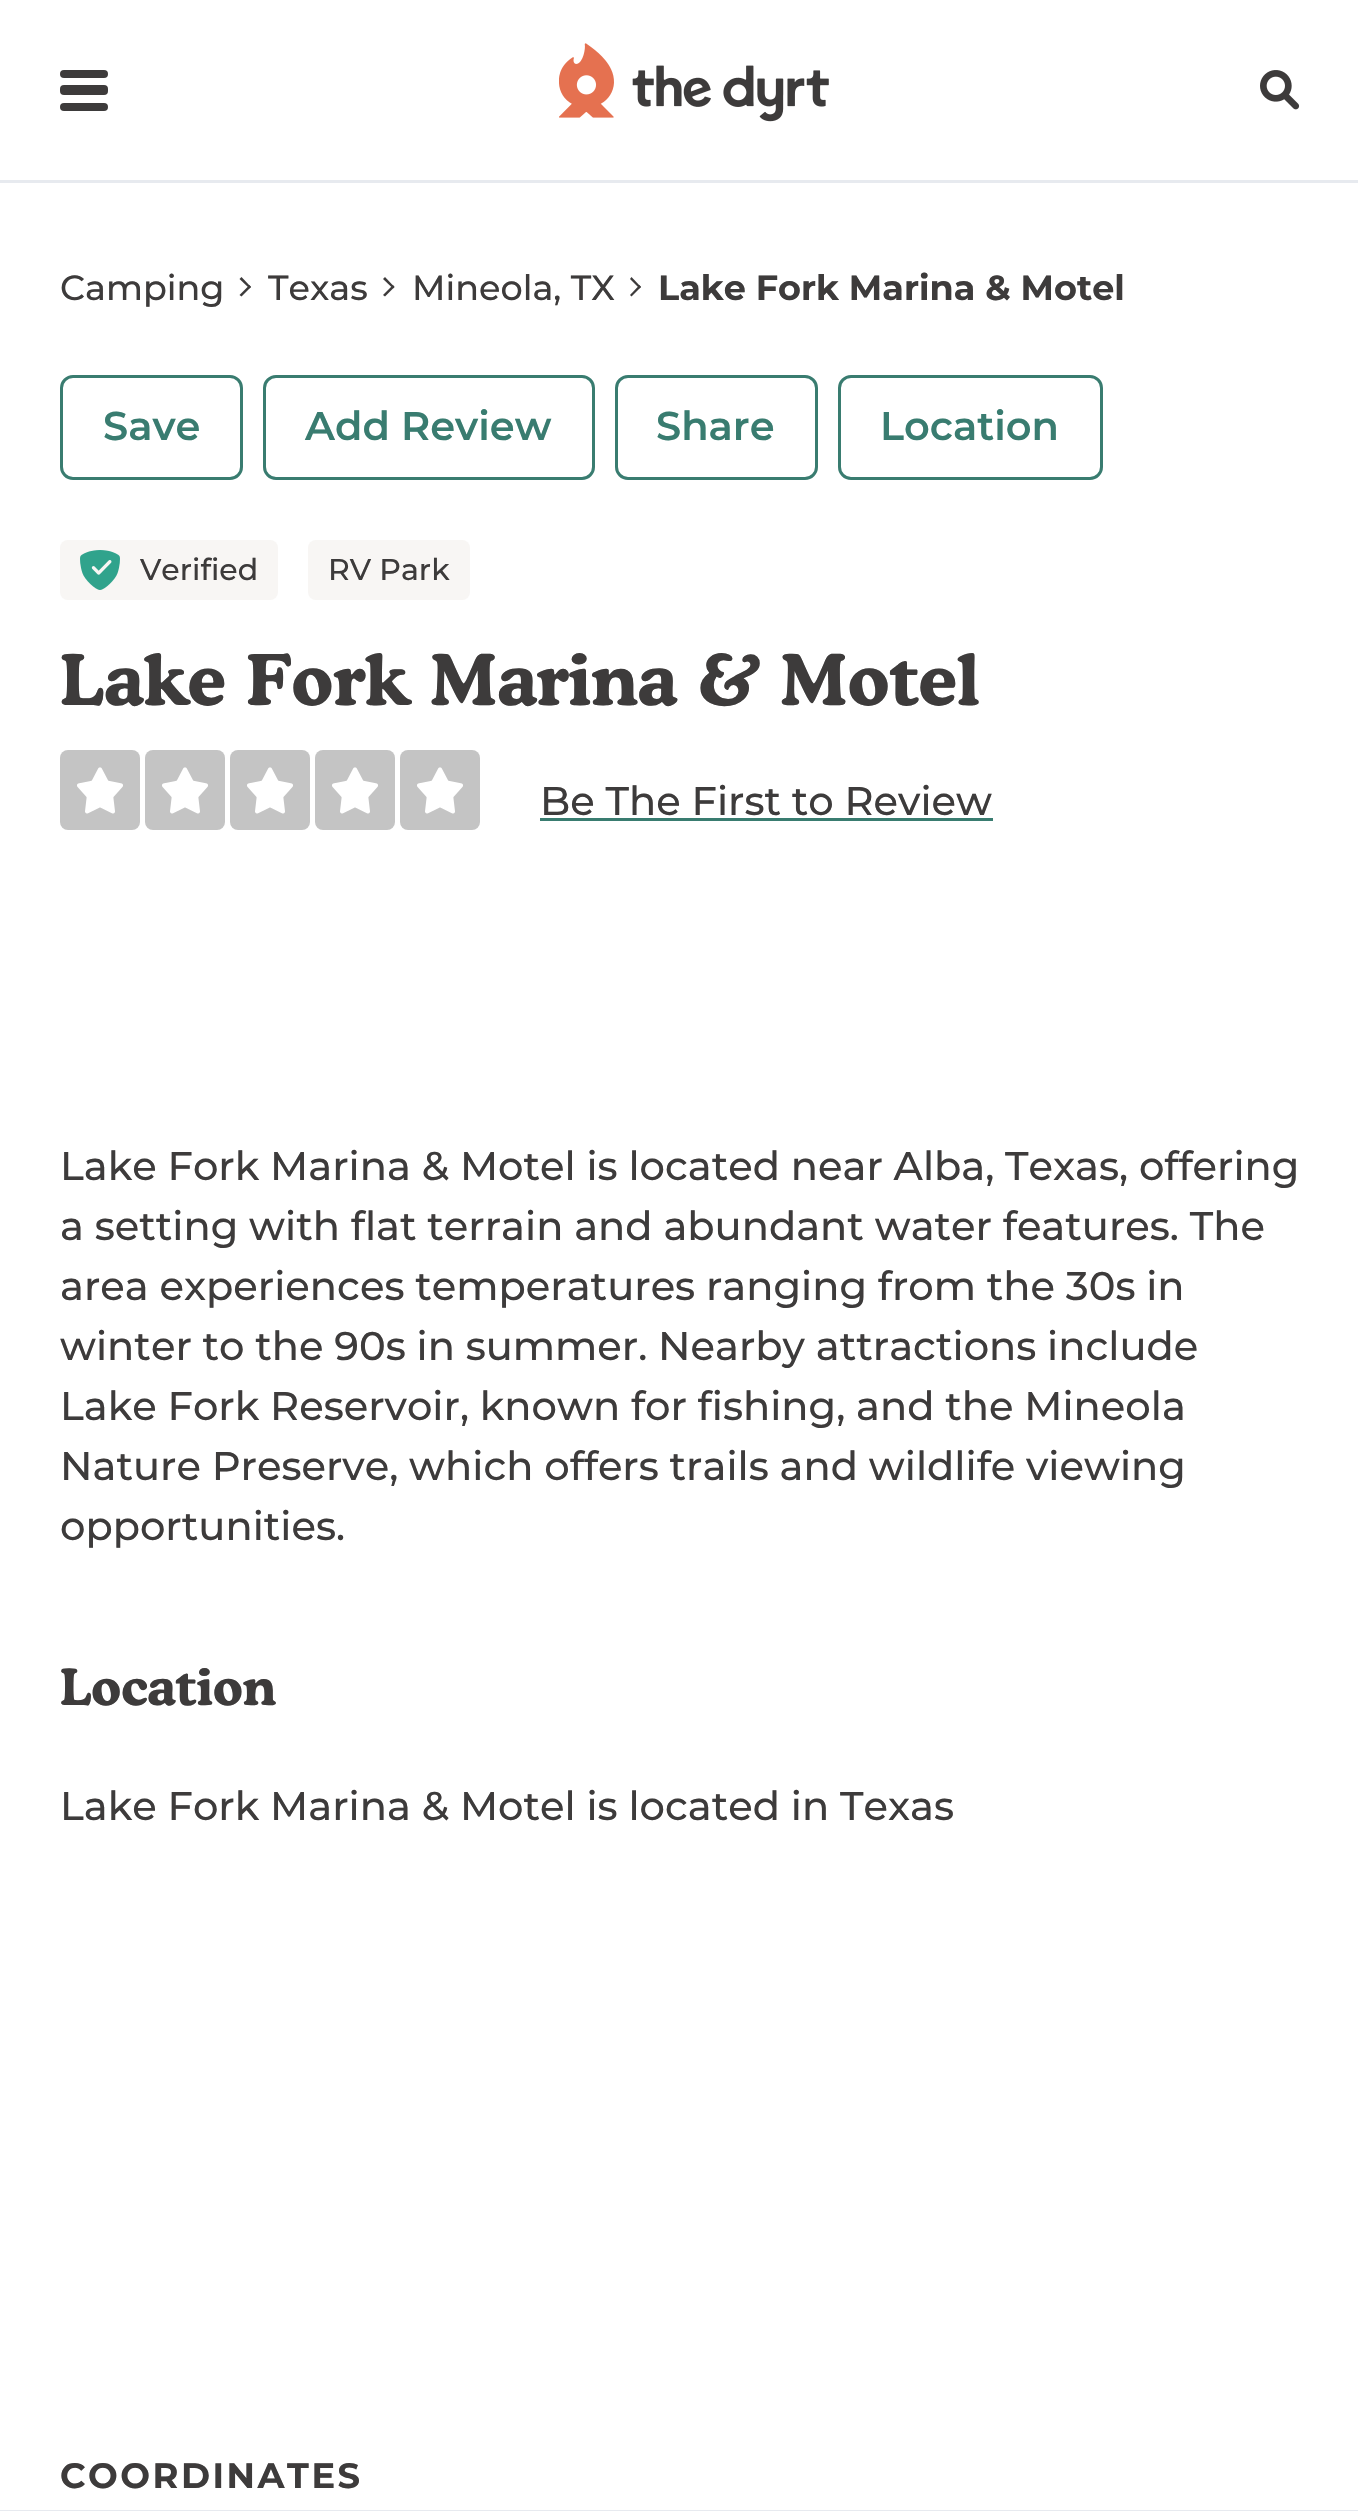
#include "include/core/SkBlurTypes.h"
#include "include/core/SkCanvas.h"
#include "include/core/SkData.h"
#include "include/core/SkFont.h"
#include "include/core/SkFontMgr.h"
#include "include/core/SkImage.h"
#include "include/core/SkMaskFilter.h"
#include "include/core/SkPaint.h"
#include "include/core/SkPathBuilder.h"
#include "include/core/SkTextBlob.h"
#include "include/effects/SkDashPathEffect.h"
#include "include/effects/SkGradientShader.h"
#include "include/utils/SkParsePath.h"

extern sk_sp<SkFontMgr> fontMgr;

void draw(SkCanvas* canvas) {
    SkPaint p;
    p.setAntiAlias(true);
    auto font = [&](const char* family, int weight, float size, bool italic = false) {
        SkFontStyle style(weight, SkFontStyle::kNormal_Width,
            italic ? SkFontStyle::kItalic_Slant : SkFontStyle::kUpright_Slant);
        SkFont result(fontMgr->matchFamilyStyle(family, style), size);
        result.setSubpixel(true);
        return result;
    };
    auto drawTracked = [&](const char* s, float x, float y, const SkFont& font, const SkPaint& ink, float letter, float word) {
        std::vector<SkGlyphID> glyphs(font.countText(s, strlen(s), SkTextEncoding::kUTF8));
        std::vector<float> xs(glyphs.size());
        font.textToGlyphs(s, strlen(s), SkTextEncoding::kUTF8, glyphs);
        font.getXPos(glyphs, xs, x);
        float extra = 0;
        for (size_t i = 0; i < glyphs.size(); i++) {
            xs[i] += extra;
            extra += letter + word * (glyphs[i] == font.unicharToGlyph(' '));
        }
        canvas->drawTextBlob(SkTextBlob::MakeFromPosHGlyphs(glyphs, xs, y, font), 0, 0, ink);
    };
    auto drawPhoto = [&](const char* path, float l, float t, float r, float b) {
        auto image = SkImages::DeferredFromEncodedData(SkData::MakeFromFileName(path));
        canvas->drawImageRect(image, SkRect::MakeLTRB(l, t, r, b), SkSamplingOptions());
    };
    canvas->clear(0xFFFFFFFF);
    p.setColor(0xFFE7EAEF);
    canvas->drawRect(SkRect::MakeLTRB(0, 180, 1358, 183), p);
    p.setColor(0xFF3D3B3B);
    canvas->drawRoundRect(SkRect::MakeLTRB(60, 85, 108, 95), 4, 4, p);
    canvas->drawRoundRect(SkRect::MakeLTRB(60, 70, 108, 78), 4, 4, p);
    canvas->drawRoundRect(SkRect::MakeLTRB(60, 103, 108, 111), 4, 4, p);
    drawPhoto("media/1.png", 559, 43, 829, 122);
    drawPhoto("media/2.png", 1260, 70, 1300, 110);
    auto font1 = font("Montserrat", 500, 35);
    canvas->drawString("Camping", 60, 300, font1, p);
    canvas->drawPath(SkPathBuilder().moveTo(239.5f, 279).lineTo(241.5f, 277).lineTo(251, 287).lineTo(249.5f, 288.5f).close().detach(), p);
    canvas->drawPath(SkPathBuilder().moveTo(239.5f, 295).lineTo(249.5f, 285).lineTo(251, 287).lineTo(241.5f, 296.5f).close().detach(), p);
    canvas->drawString("Texas", 268, 300, font1, p);
    canvas->drawPath(SkPathBuilder().moveTo(383, 279).lineTo(385, 277).lineTo(394.5f, 287).lineTo(393, 288.5f).close().detach(), p);
    canvas->drawPath(SkPathBuilder().moveTo(383, 295).lineTo(393, 285).lineTo(394.5f, 287).lineTo(385, 296.5f).close().detach(), p);
    canvas->drawString("Mineola, TX", 412, 300, font1, p);
    canvas->drawPath(SkPathBuilder().moveTo(630, 279).lineTo(631.5f, 277).lineTo(641, 287).lineTo(639.5f, 288.5f).close().detach(), p);
    canvas->drawPath(SkPathBuilder().moveTo(630, 295).lineTo(639.5f, 285).lineTo(641, 287).lineTo(631.5f, 296.5f).close().detach(), p);
    auto font2 = font("Montserrat", 700, 35);
    canvas->drawString("Lake Fork Marina & Motel", 658, 300, font2, p);
    p.setStyle(SkPaint::kStroke_Style);
    p.setStrokeWidth(3);
    p.setColor(0xFF397C70);
    canvas->drawRoundRect(SkRect::MakeLTRB(61.5f, 376.5f, 241.5f, 478.5f), 11.5f, 11.5f, p);
    auto font3 = font("Montserrat", 600, 40);
    p.setStyle(SkPaint::kFill_Style);
    canvas->drawString("Save", 103, 440, font3, p);
    p.setStyle(SkPaint::kStroke_Style);
    canvas->drawRoundRect(SkRect::MakeLTRB(264.5f, 376.5f, 593.5f, 478.5f), 11.5f, 11.5f, p);
    p.setStyle(SkPaint::kFill_Style);
    canvas->drawString("Add Review", 305, 440, font3, p);
    p.setStyle(SkPaint::kStroke_Style);
    canvas->drawRoundRect(SkRect::MakeLTRB(616.5f, 376.5f, 816.5f, 478.5f), 11.5f, 11.5f, p);
    p.setStyle(SkPaint::kFill_Style);
    canvas->drawString("Share", 656, 440, font3, p);
    p.setStyle(SkPaint::kStroke_Style);
    canvas->drawRoundRect(SkRect::MakeLTRB(839.5f, 376.5f, 1101.5f, 478.5f), 11.5f, 11.5f, p);
    p.setStyle(SkPaint::kFill_Style);
    canvas->drawString("Location", 880, 440, font3, p);
    p.setColor(0xFFF8F6F4);
    canvas->drawRoundRect(SkRect::MakeLTRB(60, 540, 278, 600), 8, 8, p);
    drawPhoto("media/3.png", 80, 550, 120, 590);
    auto font4 = font("Montserrat", 500, 30);
    p.setColor(0xFF3D3B3B);
    canvas->drawString("Verified", 140, 580, font4, p);
    p.setColor(0xFFF8F6F4);
    canvas->drawRoundRect(SkRect::MakeLTRB(308, 540, 470, 600), 8, 8, p);
    p.setColor(0xFF3D3B3B);
    canvas->drawString("RV Park", 328, 580, font4, p);
    auto font5 = font("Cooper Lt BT", 700, 70);
    canvas->drawString("Lake Fork Marina & Motel", 60, 705, font5, p);
    p.setColor(0xFFC4C4C4);
    canvas->drawRoundRect(SkRect::MakeLTRB(60, 750, 140, 830), 8, 8, p);
    drawPhoto("media/4.png", 77, 767, 123, 814);
    canvas->drawRoundRect(SkRect::MakeLTRB(145, 750, 225, 830), 8, 8, p);
    drawPhoto("media/4.png", 162, 767, 208, 814);
    canvas->drawRoundRect(SkRect::MakeLTRB(230, 750, 310, 830), 8, 8, p);
    drawPhoto("media/4.png", 247, 767, 293, 814);
    canvas->drawRoundRect(SkRect::MakeLTRB(315, 750, 395, 830), 8, 8, p);
    drawPhoto("media/4.png", 332, 767, 378, 814);
    canvas->drawRoundRect(SkRect::MakeLTRB(400, 750, 480, 830), 8, 8, p);
    drawPhoto("media/4.png", 417, 767, 463, 814);
    auto font6 = font("Montserrat", 500, 40);
    p.setColor(0xFF3D3B3B);
    canvas->drawString("Be The First to Review", 540, 815, font6, p);
    p.setColor(0xFF397C70);
    canvas->drawRect(SkRect::MakeLTRB(540, 818, 993, 821), p);
    p.setColor(0xFF3D3B3B);
    {
        const struct { const char* s; float x, y; } items[] = {
            {"Lake Fork Marina & Motel is located near Alba, Texas, offering", 60, 1180},
            {"a setting with flat terrain and abundant water features. The", 60, 1240},
            {"area experiences temperatures ranging from the 30s in", 60, 1300},
            {"winter to the 90s in summer. Nearby attractions include", 60, 1360},
            {"Lake Fork Reservoir, known for fishing, and the Mineola", 60, 1420},
            {"Nature Preserve, which offers trails and wildlife viewing", 60, 1480},
            {"opportunities.", 60, 1540},
        };
        for (auto [s, x, y] : items) {
            canvas->drawString(s, x, y, font6, p);
        }
    }
    auto font7 = font("Cooper Lt BT", 700, 50);
    canvas->drawString("Location", 60, 1705, font7, p);
    canvas->drawString("Lake Fork Marina & Motel is located in Texas", 60, 1820, font6, p);
    auto font8 = font("Montserrat", 700, 35.25f);
    drawTracked("COORDINATES", 60, 2488, font8, p, 2.5f, 0);
    p.setColor(0xFFE7EAEF);
    canvas->drawRect(SkRect::MakeLTRB(0, 2510, 1358, 2511), p);
}
